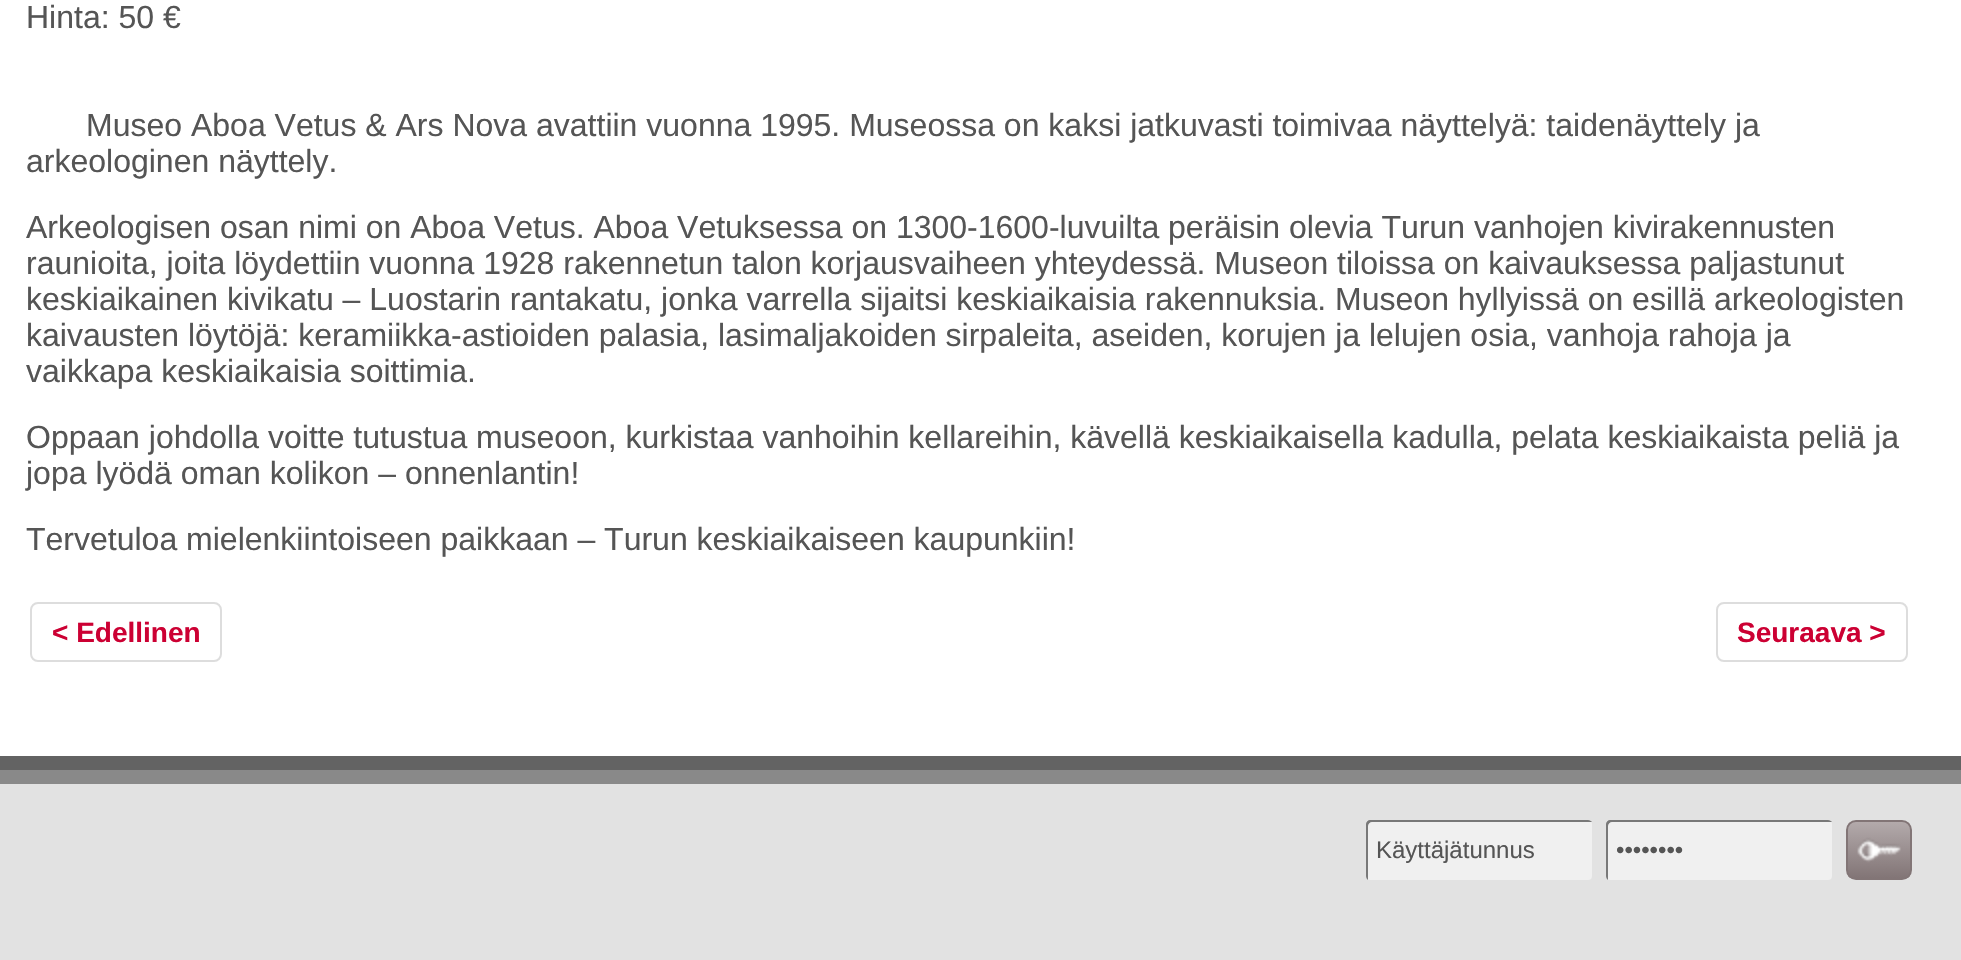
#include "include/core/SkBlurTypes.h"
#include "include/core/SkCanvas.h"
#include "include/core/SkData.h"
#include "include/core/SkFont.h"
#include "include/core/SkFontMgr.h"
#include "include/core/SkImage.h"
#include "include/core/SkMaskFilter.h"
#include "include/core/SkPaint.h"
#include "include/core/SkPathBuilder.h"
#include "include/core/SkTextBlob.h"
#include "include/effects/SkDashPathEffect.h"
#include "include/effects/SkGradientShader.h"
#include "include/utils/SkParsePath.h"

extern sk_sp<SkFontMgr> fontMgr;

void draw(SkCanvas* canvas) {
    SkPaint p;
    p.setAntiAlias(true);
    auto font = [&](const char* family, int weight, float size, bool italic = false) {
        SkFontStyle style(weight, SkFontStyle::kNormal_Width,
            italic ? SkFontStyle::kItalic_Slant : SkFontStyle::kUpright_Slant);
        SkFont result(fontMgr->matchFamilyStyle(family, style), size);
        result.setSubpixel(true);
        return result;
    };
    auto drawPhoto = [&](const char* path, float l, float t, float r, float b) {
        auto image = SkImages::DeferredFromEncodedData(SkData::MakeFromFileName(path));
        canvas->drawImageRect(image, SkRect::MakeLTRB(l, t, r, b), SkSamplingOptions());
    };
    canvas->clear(0xFFE2E2E2);
    p.setColor(0xFFFFFFFF);
    canvas->drawRect(SkRect::MakeLTRB(0, 0, 1961, 756), p);
    auto font1 = font("Liberation Sans", 400, 32);
    p.setColor(0xFF555555);
    {
        const struct { const char* s; float x, y; } items[] = {
            {"Hinta: 50 €", 26, 28},
            {"Museo Aboa Vetus & Ars Nova avattiin vuonna 1995. Museossa on kaksi jatkuvasti toimivaa näyttelyä: taidenäyttely ja", 86, 136},
            {"arkeologinen näyttely.", 26, 172},
            {"Arkeologisen osan nimi on Aboa Vetus. Aboa Vetuksessa on 1300-1600-luvuilta peräisin olevia Turun vanhojen kivirakennusten", 26, 238},
            {"raunioita, joita löydettiin vuonna 1928 rakennetun talon korjausvaiheen yhteydessä. Museon tiloissa on kaivauksessa paljastunut", 26, 274},
            {"keskiaikainen kivikatu – Luostarin rantakatu, jonka varrella sijaitsi keskiaikaisia rakennuksia. Museon hyllyissä on esillä arkeologisten", 26, 310},
            {"kaivausten löytöjä: keramiikka-astioiden palasia, lasimaljakoiden sirpaleita, aseiden, korujen ja lelujen osia, vanhoja rahoja ja", 26, 346},
            {"vaikkapa keskiaikaisia soittimia.", 26, 382},
            {"Oppaan johdolla voitte tutustua museoon, kurkistaa vanhoihin kellareihin, kävellä keskiaikaisella kadulla, pelata keskiaikaista peliä ja", 26, 448},
            {"jopa lyödä oman kolikon – onnenlantin!", 26, 484},
            {"Tervetuloa mielenkiintoiseen paikkaan – Turun keskiaikaiseen kaupunkiin!", 26, 550},
        };
        for (auto [s, x, y] : items) {
            canvas->drawString(s, x, y, font1, p);
        }
    }
    p.setStyle(SkPaint::kStroke_Style);
    p.setStrokeWidth(2);
    p.setColor(0xFFDDDDDD);
    canvas->drawRoundRect(SkRect::MakeLTRB(31, 603, 221, 661), 7, 7, p);
    auto font2 = font("Liberation Sans", 700, 28);
    p.setStyle(SkPaint::kFill_Style);
    p.setColor(0xFFCC0033);
    canvas->drawString("< Edellinen", 52, 642, font2, p);
    p.setStyle(SkPaint::kStroke_Style);
    p.setColor(0xFFDDDDDD);
    canvas->drawRoundRect(SkRect::MakeLTRB(1717, 603, 1907, 661), 7, 7, p);
    p.setStyle(SkPaint::kFill_Style);
    p.setColor(0xFFCC0033);
    canvas->drawString("Seuraava >", 1737, 642, font2, p);
    p.setColor(0xFF636363);
    canvas->drawRect(SkRect::MakeLTRB(0, 756, 1961, 770), p);
    p.setColor(0xFF898989);
    canvas->drawRect(SkRect::MakeLTRB(0, 770, 1961, 784), p);
    p.setColor(0xFFF0F0F0);
    canvas->drawRoundRect(SkRect::MakeLTRB(1366, 820, 1592, 880), 4, 4, p);
    p.setColor(0x80000000);
    canvas->drawPath(SkPathBuilder().moveTo(1372, 822).lineTo(1590, 822).lineTo(1592, 822).cubicTo(1591, 821, 1590, 820, 1588, 820).lineTo(1370, 820).cubicTo(1368, 820, 1366, 822, 1366, 824).lineTo(1366, 876).cubicTo(1366, 878, 1367, 879, 1368, 880).lineTo(1368, 878).lineTo(1368, 826).cubicTo(1368, 824, 1370, 822, 1372, 822).close().detach(), p);
    auto font3 = font("Liberation Sans", 400, 24);
    p.setColor(0xFF555555);
    canvas->drawString("Käyttäjätunnus", 1376, 858, font3, p);
    p.setColor(0xFFF0F0F0);
    canvas->drawRoundRect(SkRect::MakeLTRB(1606, 820, 1832, 880), 4, 4, p);
    p.setColor(0x80000000);
    canvas->drawPath(SkPathBuilder().moveTo(1612, 822).lineTo(1830, 822).lineTo(1832, 822).cubicTo(1831, 821, 1830, 820, 1828, 820).lineTo(1610, 820).cubicTo(1608, 820, 1606, 822, 1606, 824).lineTo(1606, 876).cubicTo(1606, 878, 1607, 879, 1608, 880).lineTo(1608, 878).lineTo(1608, 826).cubicTo(1608, 824, 1610, 822, 1612, 822).close().detach(), p);
    p.setColor(0xFF555555);
    canvas->drawString("••••••••", 1616, 858, font3, p);
    drawPhoto("media/1.png", 1848, 822, 1910, 878);
    p.setStyle(SkPaint::kStroke_Style);
    p.setColor(0xFF827576);
    canvas->drawRoundRect(SkRect::MakeLTRB(1847, 821, 1911, 879), 9, 9, p);
}
